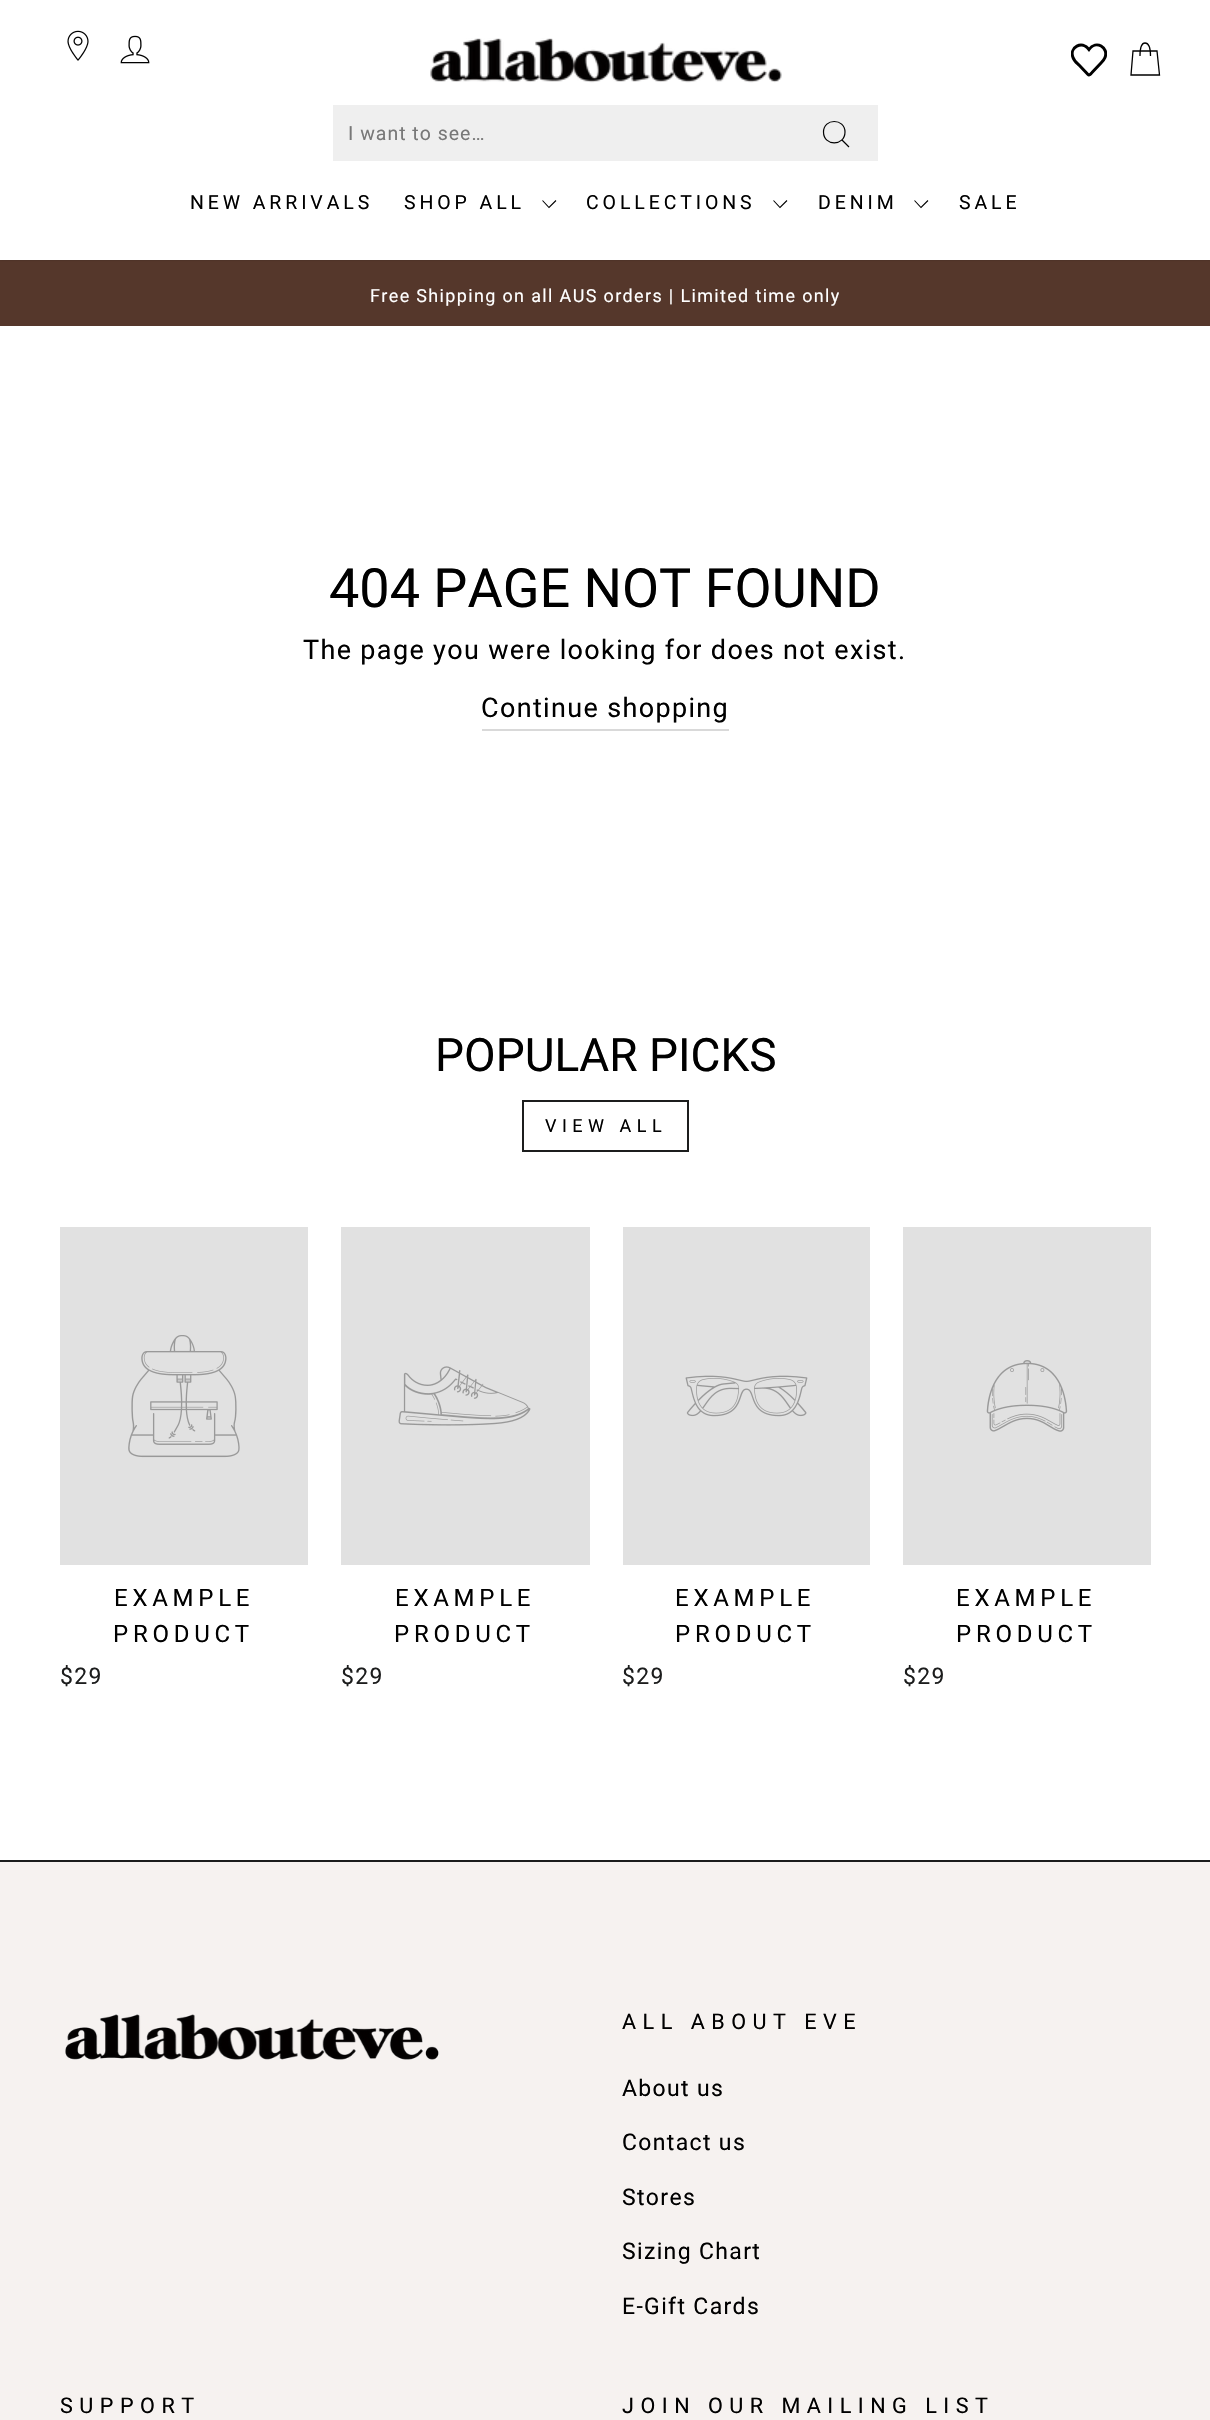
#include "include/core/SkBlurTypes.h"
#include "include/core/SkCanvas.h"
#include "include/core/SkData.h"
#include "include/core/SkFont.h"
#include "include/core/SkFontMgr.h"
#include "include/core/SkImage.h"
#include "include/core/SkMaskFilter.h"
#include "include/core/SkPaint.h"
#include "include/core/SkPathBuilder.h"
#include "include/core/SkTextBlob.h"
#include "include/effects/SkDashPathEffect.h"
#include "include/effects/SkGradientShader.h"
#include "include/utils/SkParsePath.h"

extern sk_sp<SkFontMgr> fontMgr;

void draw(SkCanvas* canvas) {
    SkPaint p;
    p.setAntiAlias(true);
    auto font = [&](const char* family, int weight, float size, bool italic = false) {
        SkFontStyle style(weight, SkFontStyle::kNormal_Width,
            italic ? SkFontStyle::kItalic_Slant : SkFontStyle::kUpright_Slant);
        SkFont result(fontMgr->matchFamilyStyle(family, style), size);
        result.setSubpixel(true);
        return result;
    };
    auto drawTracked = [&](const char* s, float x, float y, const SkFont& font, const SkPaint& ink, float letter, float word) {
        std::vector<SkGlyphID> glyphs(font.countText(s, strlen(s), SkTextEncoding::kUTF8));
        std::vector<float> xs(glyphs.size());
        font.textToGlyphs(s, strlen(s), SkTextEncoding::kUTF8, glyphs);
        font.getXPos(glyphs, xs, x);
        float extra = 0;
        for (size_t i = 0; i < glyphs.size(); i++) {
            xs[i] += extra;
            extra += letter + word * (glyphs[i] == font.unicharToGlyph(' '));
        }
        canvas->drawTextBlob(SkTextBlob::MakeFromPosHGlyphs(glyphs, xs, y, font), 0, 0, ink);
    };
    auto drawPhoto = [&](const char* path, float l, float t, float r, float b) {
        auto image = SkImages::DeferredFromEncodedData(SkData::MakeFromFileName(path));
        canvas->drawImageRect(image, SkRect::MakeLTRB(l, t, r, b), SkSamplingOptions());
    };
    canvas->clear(0xFFFFFFFF);
    p.setColor(0xFF55372B);
    canvas->drawRect(SkRect::MakeLTRB(0, 260, 1210, 326), p);
    p.setColor(0x33000000);
    p.setMaskFilter(SkMaskFilter::MakeBlur(kNormal_SkBlurStyle, 1));
    canvas->drawRect(SkRect::MakeLTRB(0, -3, 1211, 260), p);
    p.setMaskFilter(nullptr);
    p.setColor(0xFFFFFFFF);
    canvas->drawRect(SkRect::MakeLTRB(0, 0, 1210, 260), p);
    drawPhoto("media/1.png", 67, 30, 89, 61);
    drawPhoto("media/2.png", 120, 35, 150, 64);
    drawPhoto("media/3.png", 430, 38, 782, 83);
    canvas->save();
    canvas->clipRect(SkRect::MakeLTRB(1071, 39, 1107, 81));
    p.setStyle(SkPaint::kStroke_Style);
    p.setStrokeWidth(3);
    p.setColor(0xFF000000);
    canvas->drawPath(SkPathBuilder().moveTo(1088, 74.5f).lineTo(1079.5f, 65.5f).cubicTo(1077, 63, 1074, 61, 1073, 57.5f).cubicTo(1069, 47.5f, 1082, 40, 1089, 49.5f).cubicTo(1096, 39.5f, 1109, 47.5f, 1105, 57.5f).cubicTo(1104, 60, 1102.5f, 61.5f, 1101, 63).lineTo(1092, 72.5f).cubicTo(1091.5f, 73, 1089.5f, 76, 1088, 74.5f).close().detach(), p);
    canvas->restore();
    p.setStrokeWidth(1.3f);
    canvas->drawPath(SkPathBuilder().moveTo(1140, 56).cubicTo(1140, 45.5f, 1142, 43, 1145, 43).cubicTo(1148, 43, 1150.5f, 45.5f, 1150.5f, 56).moveTo(1133, 51).lineTo(1157, 51).lineTo(1159.5f, 75).lineTo(1131, 75).close().detach(), p);
    p.setStyle(SkPaint::kFill_Style);
    p.setColor(0xFFEFEFEF);
    canvas->drawRect(SkRect::MakeLTRB(333, 105, 878, 161), p);
    auto font1 = font("Roboto", 400, 19.5f);
    p.setColor(0xFF787878);
    drawTracked("I want to see…", 348, 140, font1, p, 1, 0);
    p.setStyle(SkPaint::kStroke_Style);
    p.setStrokeWidth(1.2f);
    p.setColor(0xFF000000);
    canvas->drawPath(SkPathBuilder().moveTo(845, 132).cubicTo(845, 146.5f, 823.5f, 146.5f, 823.5f, 132).cubicTo(823.5f, 118, 845, 118, 845, 132).close().moveTo(849, 147).lineTo(842, 140).detach(), p);
    p.setStyle(SkPaint::kFill_Style);
    drawTracked("NEW ARRIVALS", 190, 209, font1, p, 3.9f, 0);
    drawTracked("SHOP ALL", 404, 209, font1, p, 3.9f, 0);
    p.setStyle(SkPaint::kStroke_Style);
    p.setStrokeWidth(1.1f);
    canvas->drawPath(SkPathBuilder().moveTo(542.5f, 200.5f).lineTo(549, 207.5f).lineTo(556, 200.5f).detach(), p);
    p.setStyle(SkPaint::kFill_Style);
    drawTracked("COLLECTIONS", 586, 209, font1, p, 3.9f, 0);
    p.setStyle(SkPaint::kStroke_Style);
    canvas->drawPath(SkPathBuilder().moveTo(773.5f, 200.5f).lineTo(780, 207.5f).lineTo(787, 200.5f).detach(), p);
    p.setStyle(SkPaint::kFill_Style);
    drawTracked("DENIM", 818, 209, font1, p, 3.9f, 0);
    p.setStyle(SkPaint::kStroke_Style);
    canvas->drawPath(SkPathBuilder().moveTo(914.5f, 200.5f).lineTo(921, 207.5f).lineTo(928, 200.5f).detach(), p);
    p.setStyle(SkPaint::kFill_Style);
    drawTracked("SALE", 959, 209, font1, p, 3.9f, 0);
    auto font2 = font("Roboto", 400, 18);
    p.setColor(0xFFFFFFFF);
    drawTracked("Free Shipping on all AUS orders | Limited time only", 370, 302, font2, p, 1.35f, 0);
    auto font3 = font("Roboto", 400, 54);
    p.setColor(0xFF000000);
    canvas->drawString("404 PAGE NOT FOUND", 329, 607, font3, p);
    auto font4 = font("Roboto", 400, 27);
    drawTracked("The page you were looking for does not exist.", 303, 659, font4, p, 1.35f, 0);
    p.setColor(0xFFD9D9D9);
    canvas->drawRect(SkRect::MakeLTRB(482, 729, 729, 731), p);
    p.setColor(0xFF000000);
    drawTracked("Continue shopping", 481, 717, font4, p, 1.35f, 0);
    auto font5 = font("Roboto", 400, 46);
    canvas->drawString("POPULAR PICKS", 435, 1071, font5, p);
    p.setStyle(SkPaint::kStroke_Style);
    p.setStrokeWidth(2);
    p.setColor(0xFF1C1D1D);
    canvas->drawRect(SkRect::MakeLTRB(523, 1101, 688, 1151), p);
    p.setStyle(SkPaint::kFill_Style);
    p.setColor(0xFF000000);
    drawTracked("VIEW ALL", 545, 1132, font2, p, 5.5f, 0);
    p.setColor(0xFFE1E1E1);
    canvas->drawRect(SkRect::MakeLTRB(60, 1227, 308, 1565), p);
    drawPhoto("media/4.png", 128, 1335, 240, 1458);
    auto font6 = font("Roboto", 400, 24);
    p.setColor(0xFF000000);
    drawTracked("EXAMPLE", 114, 1606, font6, p, 4.75f, 0);
    drawTracked("PRODUCT", 113, 1642, font6, p, 4.75f, 0);
    auto font7 = font("Roboto", 400, 23);
    p.setColor(0xFF1C1D1D);
    drawTracked("$29", 60, 1684, font7, p, 1.35f, 0);
    p.setColor(0xFFE1E1E1);
    canvas->drawRect(SkRect::MakeLTRB(341, 1227, 590, 1565), p);
    drawPhoto("media/5.png", 398, 1366, 531, 1426);
    p.setColor(0xFF000000);
    drawTracked("EXAMPLE", 395, 1606, font6, p, 4.75f, 0);
    drawTracked("PRODUCT", 394, 1642, font6, p, 4.75f, 0);
    p.setColor(0xFF1C1D1D);
    drawTracked("$29", 341, 1684, font7, p, 1.35f, 0);
    p.setColor(0xFFE1E1E1);
    canvas->drawRect(SkRect::MakeLTRB(623, 1227, 870, 1565), p);
    drawPhoto("media/6.png", 685, 1375, 808, 1417);
    p.setColor(0xFF000000);
    drawTracked("EXAMPLE", 675, 1606, font6, p, 4.75f, 0);
    drawTracked("PRODUCT", 675, 1642, font6, p, 4.75f, 0);
    p.setColor(0xFF1C1D1D);
    drawTracked("$29", 622, 1684, font7, p, 1.35f, 0);
    p.setColor(0xFFE1E1E1);
    canvas->drawRect(SkRect::MakeLTRB(903, 1227, 1151, 1565), p);
    drawPhoto("media/7.png", 986, 1360, 1068, 1432);
    p.setColor(0xFF000000);
    drawTracked("EXAMPLE", 956, 1606, font6, p, 4.75f, 0);
    drawTracked("PRODUCT", 956, 1642, font6, p, 4.75f, 0);
    p.setColor(0xFF1C1D1D);
    drawTracked("$29", 903, 1684, font7, p, 1.35f, 0);
    p.setColor(0xFFF6F2F0);
    canvas->drawRect(SkRect::MakeLTRB(0, 1862, 1210, 2420), p);
    p.setColor(0xFF1C1D1D);
    canvas->drawRect(SkRect::MakeLTRB(0, 1860, 1210, 1862), p);
    drawPhoto("media/8.png", 65, 2014, 439, 2060);
    auto font8 = font("Roboto", 400, 21.6f);
    p.setColor(0xFF000000);
    drawTracked("ALL ABOUT EVE", 622, 2029, font8, p, 6.5f, 0);
    {
        const struct { const char* s; float x, y; } items[] = {
            {"About us", 622, 2096},
            {"Contact us", 622, 2150},
            {"Stores", 622, 2205},
            {"Sizing Chart", 622, 2259},
            {"E-Gift Cards", 622, 2314},
        };
        for (auto [s, x, y] : items) {
            drawTracked(s, x, y, font7, p, 1.35f, 0);
        }
    }
    drawTracked("SUPPORT", 60, 2413, font8, p, 6.5f, 0);
    drawTracked("JOIN OUR MAILING LIST", 622, 2413, font8, p, 6.5f, 0);
}
